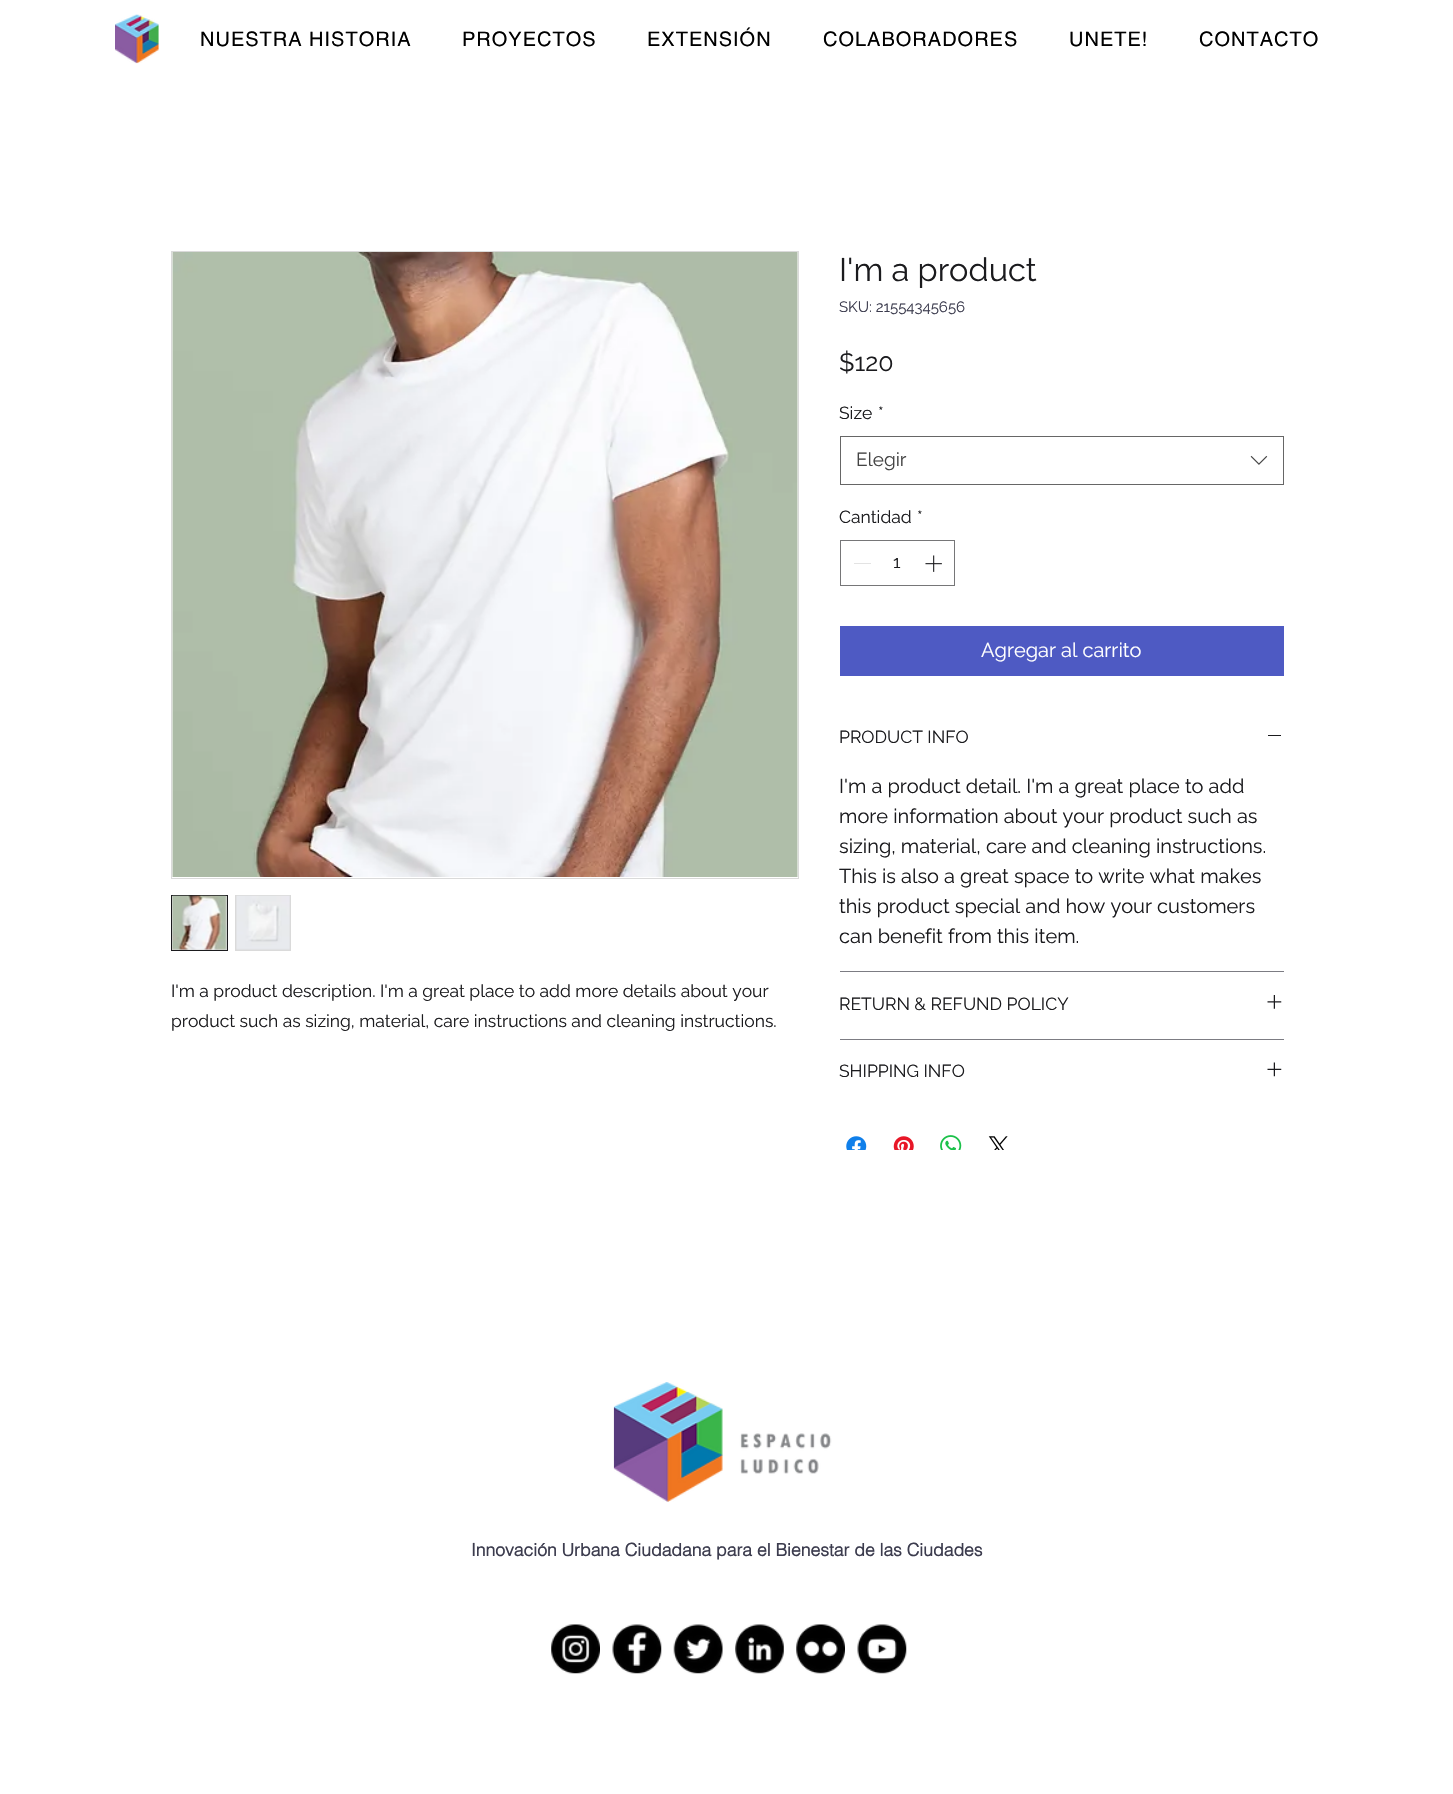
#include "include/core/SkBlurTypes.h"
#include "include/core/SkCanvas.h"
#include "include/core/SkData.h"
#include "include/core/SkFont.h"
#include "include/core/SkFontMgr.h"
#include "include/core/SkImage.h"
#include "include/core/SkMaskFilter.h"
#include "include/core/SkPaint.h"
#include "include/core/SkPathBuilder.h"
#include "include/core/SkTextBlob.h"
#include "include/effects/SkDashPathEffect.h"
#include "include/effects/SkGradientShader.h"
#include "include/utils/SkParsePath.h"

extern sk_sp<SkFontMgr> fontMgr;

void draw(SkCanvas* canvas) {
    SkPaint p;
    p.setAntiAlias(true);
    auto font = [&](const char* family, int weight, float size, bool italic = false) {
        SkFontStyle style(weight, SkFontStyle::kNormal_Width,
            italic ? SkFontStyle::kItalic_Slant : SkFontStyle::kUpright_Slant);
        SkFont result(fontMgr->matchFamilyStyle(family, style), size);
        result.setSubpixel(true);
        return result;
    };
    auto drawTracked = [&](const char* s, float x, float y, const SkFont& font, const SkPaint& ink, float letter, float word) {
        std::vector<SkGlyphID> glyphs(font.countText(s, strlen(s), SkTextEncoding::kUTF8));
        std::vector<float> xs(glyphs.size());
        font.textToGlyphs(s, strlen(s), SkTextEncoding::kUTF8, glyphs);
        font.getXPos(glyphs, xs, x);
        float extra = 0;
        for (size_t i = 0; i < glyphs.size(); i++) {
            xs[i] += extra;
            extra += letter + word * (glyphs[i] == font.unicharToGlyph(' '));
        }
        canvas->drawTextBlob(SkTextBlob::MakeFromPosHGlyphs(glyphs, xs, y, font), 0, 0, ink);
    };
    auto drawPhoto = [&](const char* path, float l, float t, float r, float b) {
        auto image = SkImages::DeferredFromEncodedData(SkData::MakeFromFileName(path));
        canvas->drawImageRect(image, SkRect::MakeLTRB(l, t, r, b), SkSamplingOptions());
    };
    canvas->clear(0xFFFFFFFF);
    drawPhoto("media/1.png", 115, 14, 159, 64);
    auto font1 = font("helvetica", 400, 20);
    p.setColor(0xFF000000);
    {
        const struct { const char* s; float x, y; } items[] = {
            {"NUESTRA HISTORIA", 200, 46},
            {"PROYECTOS", 462, 46},
            {"EXTENSIÓN", 647, 46},
            {"COLABORADORES", 823, 46},
            {"UNETE!", 1069, 46},
            {"CONTACTO", 1199, 46},
        };
        for (auto [s, x, y] : items) {
            drawTracked(s, x, y, font1, p, 1, 0);
        }
    }
    p.setStyle(SkPaint::kStroke_Style);
    p.setStrokeWidth(1);
    p.setColor(0xFFDADADA);
    canvas->drawRect(SkRect::MakeLTRB(171.5f, 251.5f, 798.5f, 878.5f), p);
    drawPhoto("media/2.png", 172, 252, 798, 877);
    p.setStyle(SkPaint::kFill_Style);
    canvas->drawRect(SkRect::MakeLTRB(171.5f, 895.5f, 227.5f, 950.5f), p);
    p.setStyle(SkPaint::kStroke_Style);
    p.setColor(0xFF1B1B1E);
    canvas->drawRect(SkRect::MakeLTRB(171.5f, 895.5f, 227.5f, 950.5f), p);
    drawPhoto("media/3.png", 172, 895, 227, 950);
    p.setStyle(SkPaint::kFill_Style);
    p.setColor(0xFFDADADA);
    canvas->drawRect(SkRect::MakeLTRB(235, 895, 291, 951), p);
    drawPhoto("media/4.png", 236, 895, 290, 950);
    auto font2 = font("Raleway", 400, 17.5f);
    p.setColor(0xFF1B1B1E);
    canvas->drawString("I'm a product description. I'm a great place to add more details about your", 171, 997, font2, p);
    canvas->drawString("product such as sizing, material, care instructions and cleaning instructions.", 171, 1027, font2, p);
    auto font3 = font("Raleway", 400, 32.5f);
    canvas->drawString("I'm a product", 839, 281, font3, p);
    auto font4 = font("Raleway", 400, 15);
    p.setColor(0xFF3C3C4E);
    canvas->drawString("SKU: 21554345656", 839, 312, font4, p);
    auto font5 = font("Raleway", 400, 25);
    p.setColor(0xFF1B1B1E);
    canvas->drawString("$120", 839, 371, font5, p);
    canvas->drawString("Size", 839, 419, font2, p);
    canvas->drawString("*", 878, 419, font2, p);
    p.setStyle(SkPaint::kStroke_Style);
    p.setColor(0xFF666666);
    canvas->drawRect(SkRect::MakeLTRB(840.5f, 436.5f, 1283.5f, 484.5f), p);
    auto font6 = font("Raleway", 400, 19);
    p.setStyle(SkPaint::kFill_Style);
    p.setColor(0xFF444444);
    canvas->drawString("Elegir", 856, 466, font6, p);
    drawPhoto("media/5.png", 1250, 455, 1268, 465);
    p.setColor(0xFF1B1B1E);
    canvas->drawString("Cantidad", 839, 523, font2, p);
    canvas->drawString("*", 917, 523, font2, p);
    p.setStyle(SkPaint::kStroke_Style);
    p.setColor(0xFF767678);
    canvas->drawRect(SkRect::MakeLTRB(840.5f, 540.5f, 954.5f, 585.5f), p);
    p.setStyle(SkPaint::kFill_Style);
    p.setColor(0xFFE3E3E3);
    canvas->drawRect(SkRect::MakeLTRB(854, 563, 871, 564), p);
    p.setColor(0xFF1B1B1E);
    canvas->drawString("1", 893, 568, font2, p);
    drawPhoto("media/6.png", 925, 555, 942, 572);
    p.setColor(0xFF4E5AC3);
    canvas->drawRect(SkRect::MakeLTRB(840, 626, 1284, 676), p);
    auto font7 = font("Raleway", 400, 20);
    p.setColor(0xFFFFFFFF);
    canvas->drawString("Agregar al carrito", 981, 657, font7, p);
    p.setColor(0xFF7C7C83);
    canvas->drawRect(SkRect::MakeLTRB(840, 971, 1284, 972), p);
    p.setColor(0xFF1B1B1E);
    canvas->drawString("PRODUCT INFO", 839, 743, font2, p);
    canvas->drawRect(SkRect::MakeLTRB(1268, 735, 1281, 736), p);
    {
        const struct { const char* s; float x, y; } items[] = {
            {"I'm a product detail. I'm a great place to add", 839, 793},
            {"more information about your product such as", 839, 823},
            {"sizing, material, care and cleaning instructions.", 839, 853},
            {"This is also a great space to write what makes", 839, 883},
            {"this product special and how your customers", 839, 913},
            {"can benefit from this item.", 839, 943},
        };
        for (auto [s, x, y] : items) {
            canvas->drawString(s, x, y, font7, p);
        }
    }
    p.setColor(0xFF7C7C83);
    canvas->drawRect(SkRect::MakeLTRB(840, 1039, 1284, 1040), p);
    p.setColor(0xFF1B1B1E);
    canvas->drawString("RETURN & REFUND POLICY", 839, 1010, font2, p);
    drawPhoto("media/7.png", 1267, 995, 1282, 1009);
    canvas->drawString("SHIPPING INFO", 839, 1077, font2, p);
    drawPhoto("media/8.png", 1267, 1062, 1282, 1077);
    drawPhoto("media/9.png", 846, 1136, 867, 1150);
    drawPhoto("media/10.png", 893, 1136, 914, 1150);
    drawPhoto("media/11.png", 940, 1135, 962, 1150);
    drawPhoto("media/12.png", 988, 1136, 1008, 1150);
    drawPhoto("media/13.png", 613, 1382, 832, 1502);
    auto font8 = font("helvetica", 700, 17.5f);
    p.setColor(0xFF3C3C4E);
    canvas->drawString("Innovación Urbana Ciudadana para el Bienestar de las Ciudades", 471, 1556, font8, p);
    drawPhoto("media/14.png", 551, 1624, 600, 1674);
    drawPhoto("media/15.png", 612, 1624, 662, 1674);
    drawPhoto("media/16.png", 673, 1624, 723, 1674);
    drawPhoto("media/17.png", 735, 1624, 784, 1674);
    drawPhoto("media/18.png", 796, 1624, 845, 1674);
    drawPhoto("media/19.png", 857, 1624, 907, 1674);
}
